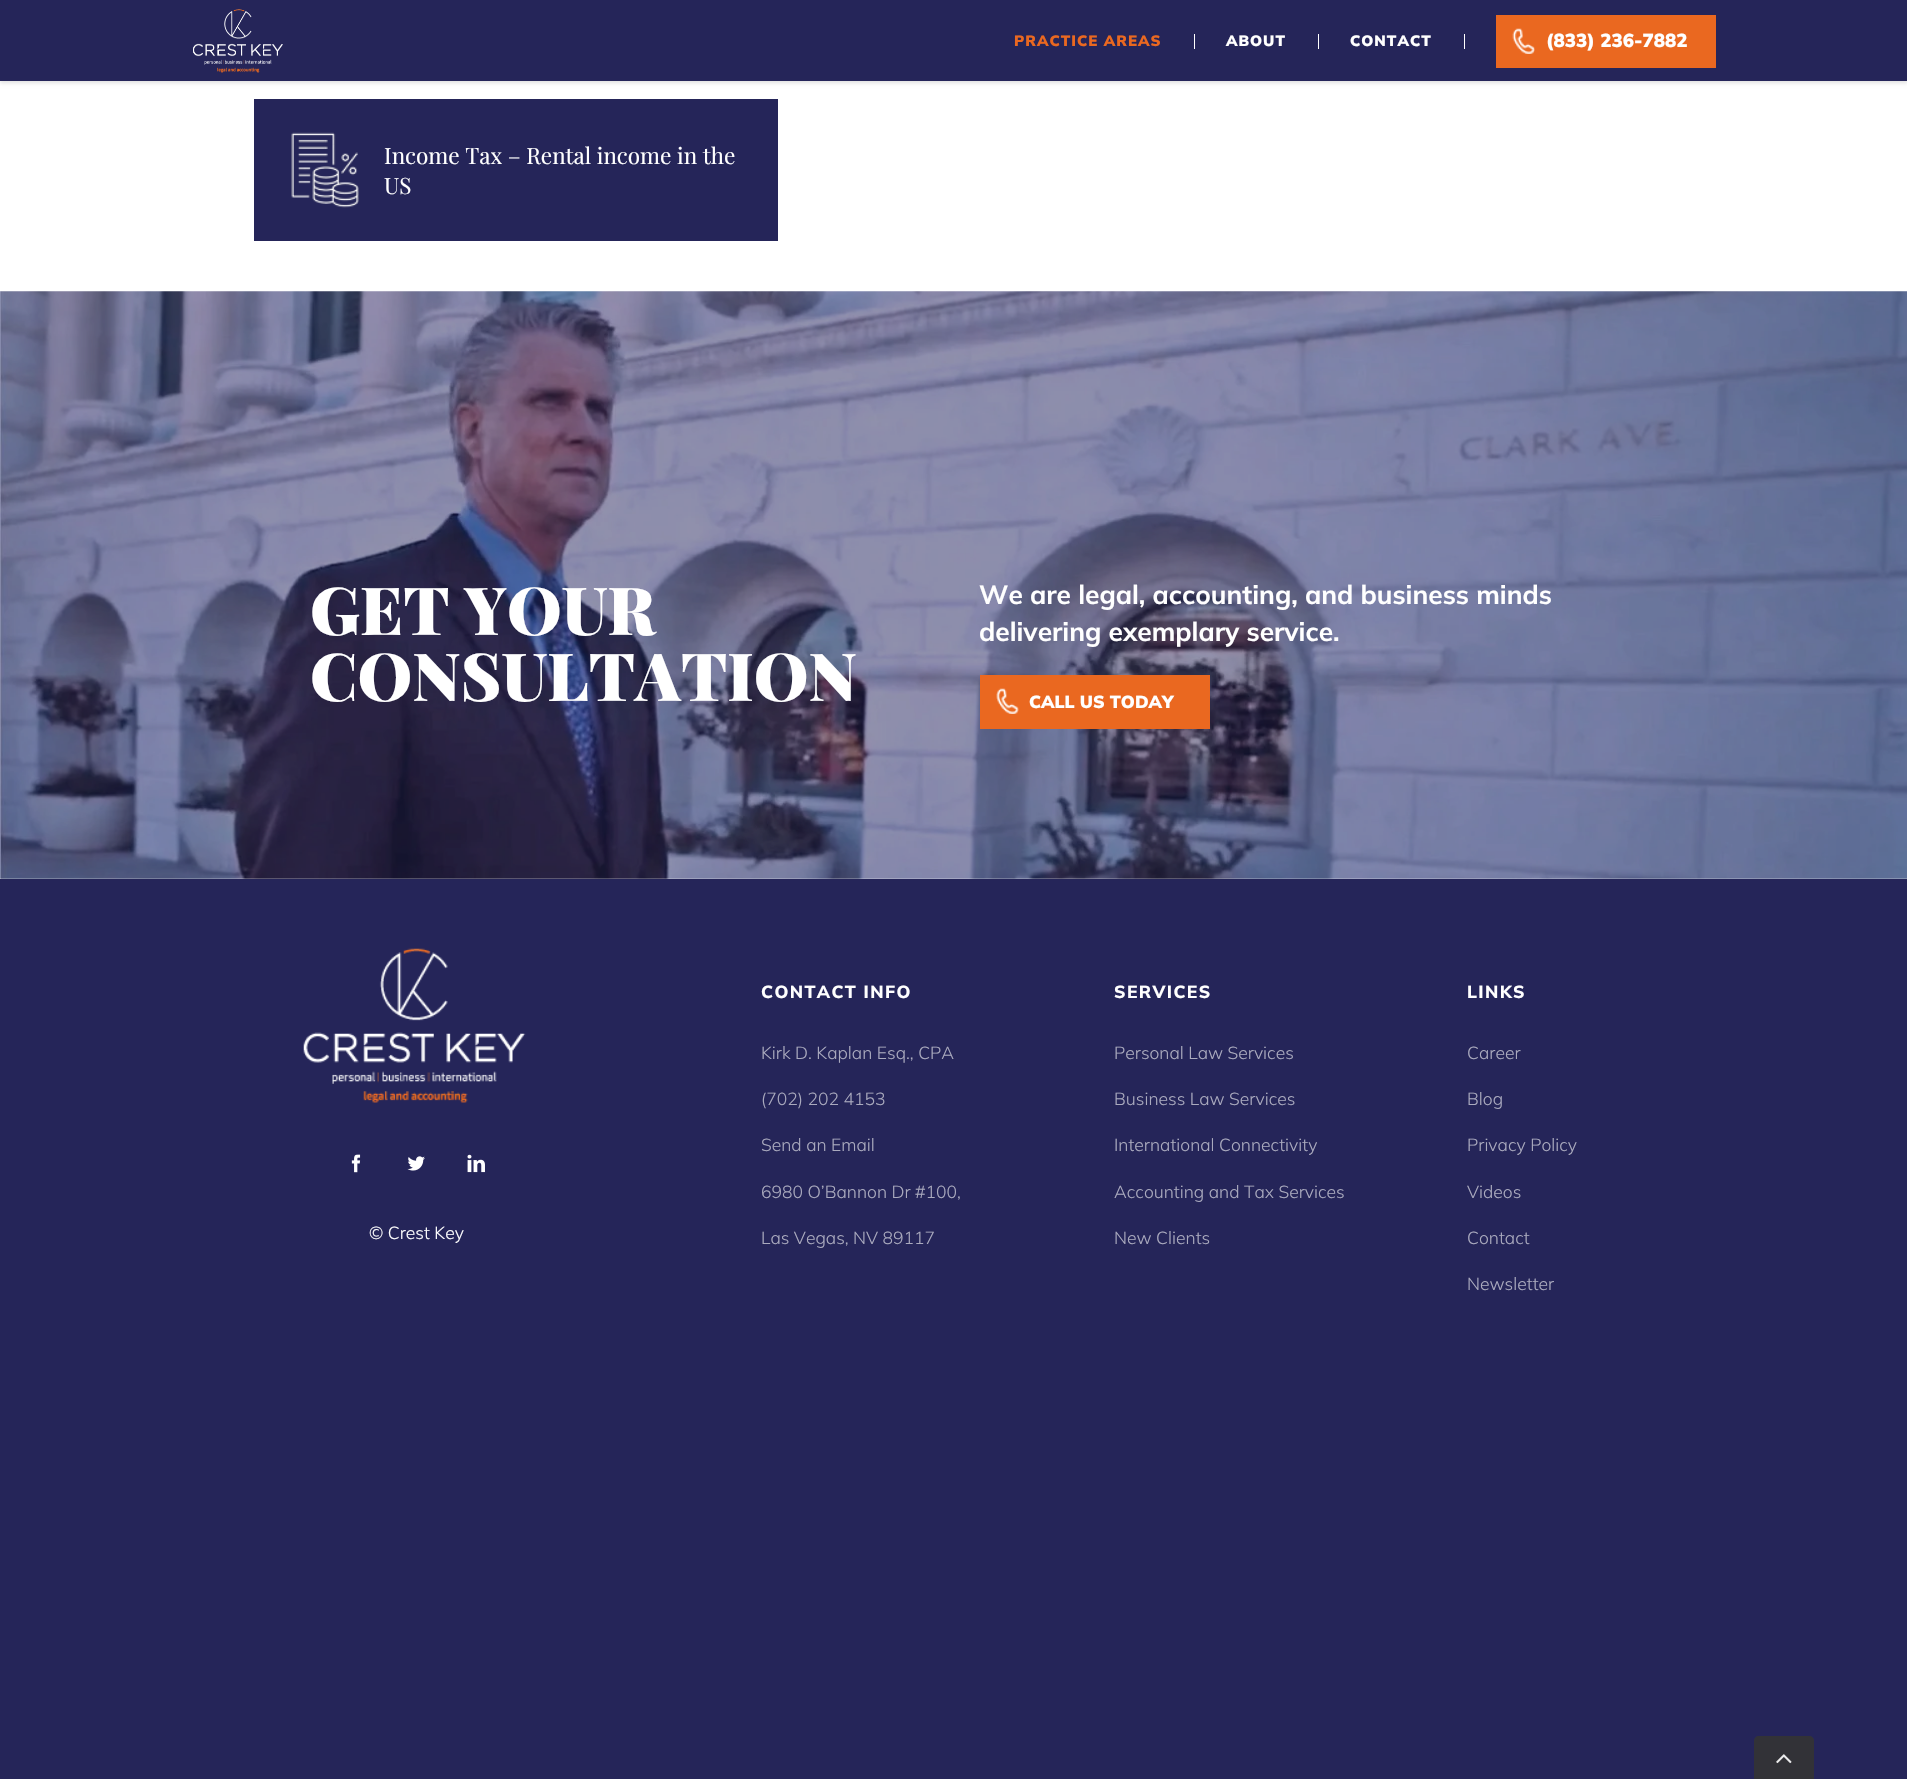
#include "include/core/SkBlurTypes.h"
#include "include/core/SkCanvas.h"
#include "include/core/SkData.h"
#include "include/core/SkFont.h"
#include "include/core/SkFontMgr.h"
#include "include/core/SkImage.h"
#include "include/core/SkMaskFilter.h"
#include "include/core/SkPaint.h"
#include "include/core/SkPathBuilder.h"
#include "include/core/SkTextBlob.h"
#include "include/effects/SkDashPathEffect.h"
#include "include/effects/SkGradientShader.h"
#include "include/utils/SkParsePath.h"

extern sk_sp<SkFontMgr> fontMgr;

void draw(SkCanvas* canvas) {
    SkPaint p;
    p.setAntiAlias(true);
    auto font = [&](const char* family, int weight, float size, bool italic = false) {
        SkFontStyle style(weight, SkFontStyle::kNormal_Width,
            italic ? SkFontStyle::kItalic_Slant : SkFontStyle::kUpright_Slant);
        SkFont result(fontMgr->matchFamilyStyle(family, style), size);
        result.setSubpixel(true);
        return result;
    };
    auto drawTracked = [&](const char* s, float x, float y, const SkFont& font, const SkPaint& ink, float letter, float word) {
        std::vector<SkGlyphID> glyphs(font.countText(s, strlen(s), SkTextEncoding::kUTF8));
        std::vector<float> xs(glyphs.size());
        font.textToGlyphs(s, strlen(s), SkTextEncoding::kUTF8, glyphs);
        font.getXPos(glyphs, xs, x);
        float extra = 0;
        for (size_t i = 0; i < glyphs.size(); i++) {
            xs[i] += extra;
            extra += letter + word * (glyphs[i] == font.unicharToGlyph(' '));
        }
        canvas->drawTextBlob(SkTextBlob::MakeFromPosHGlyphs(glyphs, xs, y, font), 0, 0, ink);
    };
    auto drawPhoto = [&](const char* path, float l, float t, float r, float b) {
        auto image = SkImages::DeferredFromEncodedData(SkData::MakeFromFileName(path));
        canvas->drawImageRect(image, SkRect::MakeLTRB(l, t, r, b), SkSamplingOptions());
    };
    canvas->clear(0xFFFFFFFF);
    p.setColor(0x1F000000);
    p.setMaskFilter(SkMaskFilter::MakeBlur(kNormal_SkBlurStyle, 2));
    canvas->drawRect(SkRect::MakeLTRB(0, 1, 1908, 83), p);
    p.setMaskFilter(nullptr);
    p.setColor(0xFF252559);
    canvas->drawRect(SkRect::MakeLTRB(0, 0, 1907, 81), p);
    drawPhoto("media/1.png", 193, 9, 283, 73);
    p.setColor(0xFFFFFFFF);
    canvas->drawRect(SkRect::MakeLTRB(1194, 34, 1195, 49), p);
    auto font1 = font("Mulish", 900, 15);
    p.setColor(0xFFEA6820);
    drawTracked("PRACTICE AREAS", 1014, 46, font1, p, 1, 0);
    p.setColor(0xFFFFFFFF);
    canvas->drawRect(SkRect::MakeLTRB(1318, 34, 1319, 49), p);
    drawTracked("ABOUT", 1226, 46, font1, p, 1, 0);
    canvas->drawRect(SkRect::MakeLTRB(1464, 34, 1465, 49), p);
    drawTracked("CONTACT", 1350, 46, font1, p, 1, 0);
    p.setColor(0xFFEA6820);
    canvas->drawRect(SkRect::MakeLTRB(1496, 15, 1716, 68), p);
    drawPhoto("media/2.png", 1512, 28, 1535, 54);
    auto font2 = font("Mulish", 900, 18.75f);
    p.setColor(0xFFFFFFFF);
    canvas->drawString("(833) 236-7882", 1546, 47, font2, p);
    p.setColor(0xFF252559);
    canvas->drawRect(SkRect::MakeLTRB(254, 99, 778, 241), p);
    drawPhoto("media/3.png", 291, 132, 359, 208);
    auto font3 = font("Playfair Display", 400, 22.5f);
    p.setColor(0xFFFFFFFF);
    canvas->drawString("Income Tax – Rental income in the", 384, 164, font3, p);
    canvas->drawString("US", 384, 194, font3, p);
    drawPhoto("media/4.png", 0, 291, 1907, 879);
    auto font4 = font("Playfair Display", 900, 66.25f);
    canvas->drawString("GET YOUR", 310, 635, font4, p);
    canvas->drawString("CONSULTATION", 310, 701, font4, p);
    auto font5 = font("Mulish", 700, 26.25f);
    canvas->drawString("We are legal, accounting, and business minds", 979, 604, font5, p);
    canvas->drawString("delivering exemplary service.", 979, 641, font5, p);
    p.setColor(0xFFEA6820);
    canvas->drawRect(SkRect::MakeLTRB(980, 675, 1210, 729), p);
    drawPhoto("media/5.png", 996, 688, 1019, 714);
    auto font6 = font("Mulish", 900, 17.5f);
    p.setColor(0xFFFFFFFF);
    canvas->drawString("CALL US TODAY", 1029, 708, font6, p);
    p.setColor(0xFF252559);
    canvas->drawRect(SkRect::MakeLTRB(0, 879, 1907, 1779), p);
    drawPhoto("media/6.png", 303, 948, 526, 1103);
    drawPhoto("media/7.png", 351, 1154, 361, 1173);
    drawPhoto("media/8.png", 407, 1156, 425, 1171);
    drawPhoto("media/9.png", 467, 1154, 485, 1173);
    auto font7 = font("Mulish", 300, 17.5f);
    p.setColor(0xFFFFFFFF);
    canvas->drawString("© Crest Key", 369, 1239, font7, p);
    auto font8 = font("Mulish", 800, 17.5f);
    drawTracked("CONTACT INFO", 761, 998, font8, p, 1.4f, 0);
    p.setColor(0xFFAAAABE);
    {
        const struct { const char* s; float x, y; } items[] = {
            {"Kirk D. Kaplan Esq., CPA", 761, 1059},
            {"(702) 202 4153", 761, 1105},
            {"Send an Email", 761, 1151},
            {"6980 O’Bannon Dr #100,", 761, 1198},
            {"Las Vegas, NV 89117", 761, 1244},
        };
        for (auto [s, x, y] : items) {
            canvas->drawString(s, x, y, font7, p);
        }
    }
    p.setColor(0xFFFFFFFF);
    drawTracked("SERVICES", 1114, 998, font8, p, 1.4f, 0);
    p.setColor(0xFFAAAABE);
    {
        const struct { const char* s; float x, y; } items[] = {
            {"Personal Law Services", 1114, 1059},
            {"Business Law Services", 1114, 1105},
            {"International Connectivity", 1114, 1151},
            {"Accounting and Tax Services", 1114, 1198},
            {"New Clients", 1114, 1244},
        };
        for (auto [s, x, y] : items) {
            canvas->drawString(s, x, y, font7, p);
        }
    }
    p.setColor(0xFFFFFFFF);
    drawTracked("LINKS", 1467, 998, font8, p, 1.4f, 0);
    p.setColor(0xFFAAAABE);
    {
        const struct { const char* s; float x, y; } items[] = {
            {"Career", 1467, 1059},
            {"Blog", 1467, 1105},
            {"Privacy Policy", 1467, 1151},
            {"Videos", 1467, 1198},
            {"Contact", 1467, 1244},
            {"Newsletter", 1467, 1290},
        };
        for (auto [s, x, y] : items) {
            canvas->drawString(s, x, y, font7, p);
        }
    }
    p.setColor(0xFF323237);
    canvas->drawPath(SkPathBuilder().moveTo(1759, 1736).lineTo(1809, 1736).cubicTo(1812, 1736, 1814, 1738, 1814, 1741).lineTo(1814, 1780).lineTo(1754, 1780).lineTo(1754, 1741).cubicTo(1754, 1738, 1756, 1736, 1759, 1736).close().detach(), p);
    drawPhoto("media/10.png", 1776, 1754, 1792, 1764);
}
